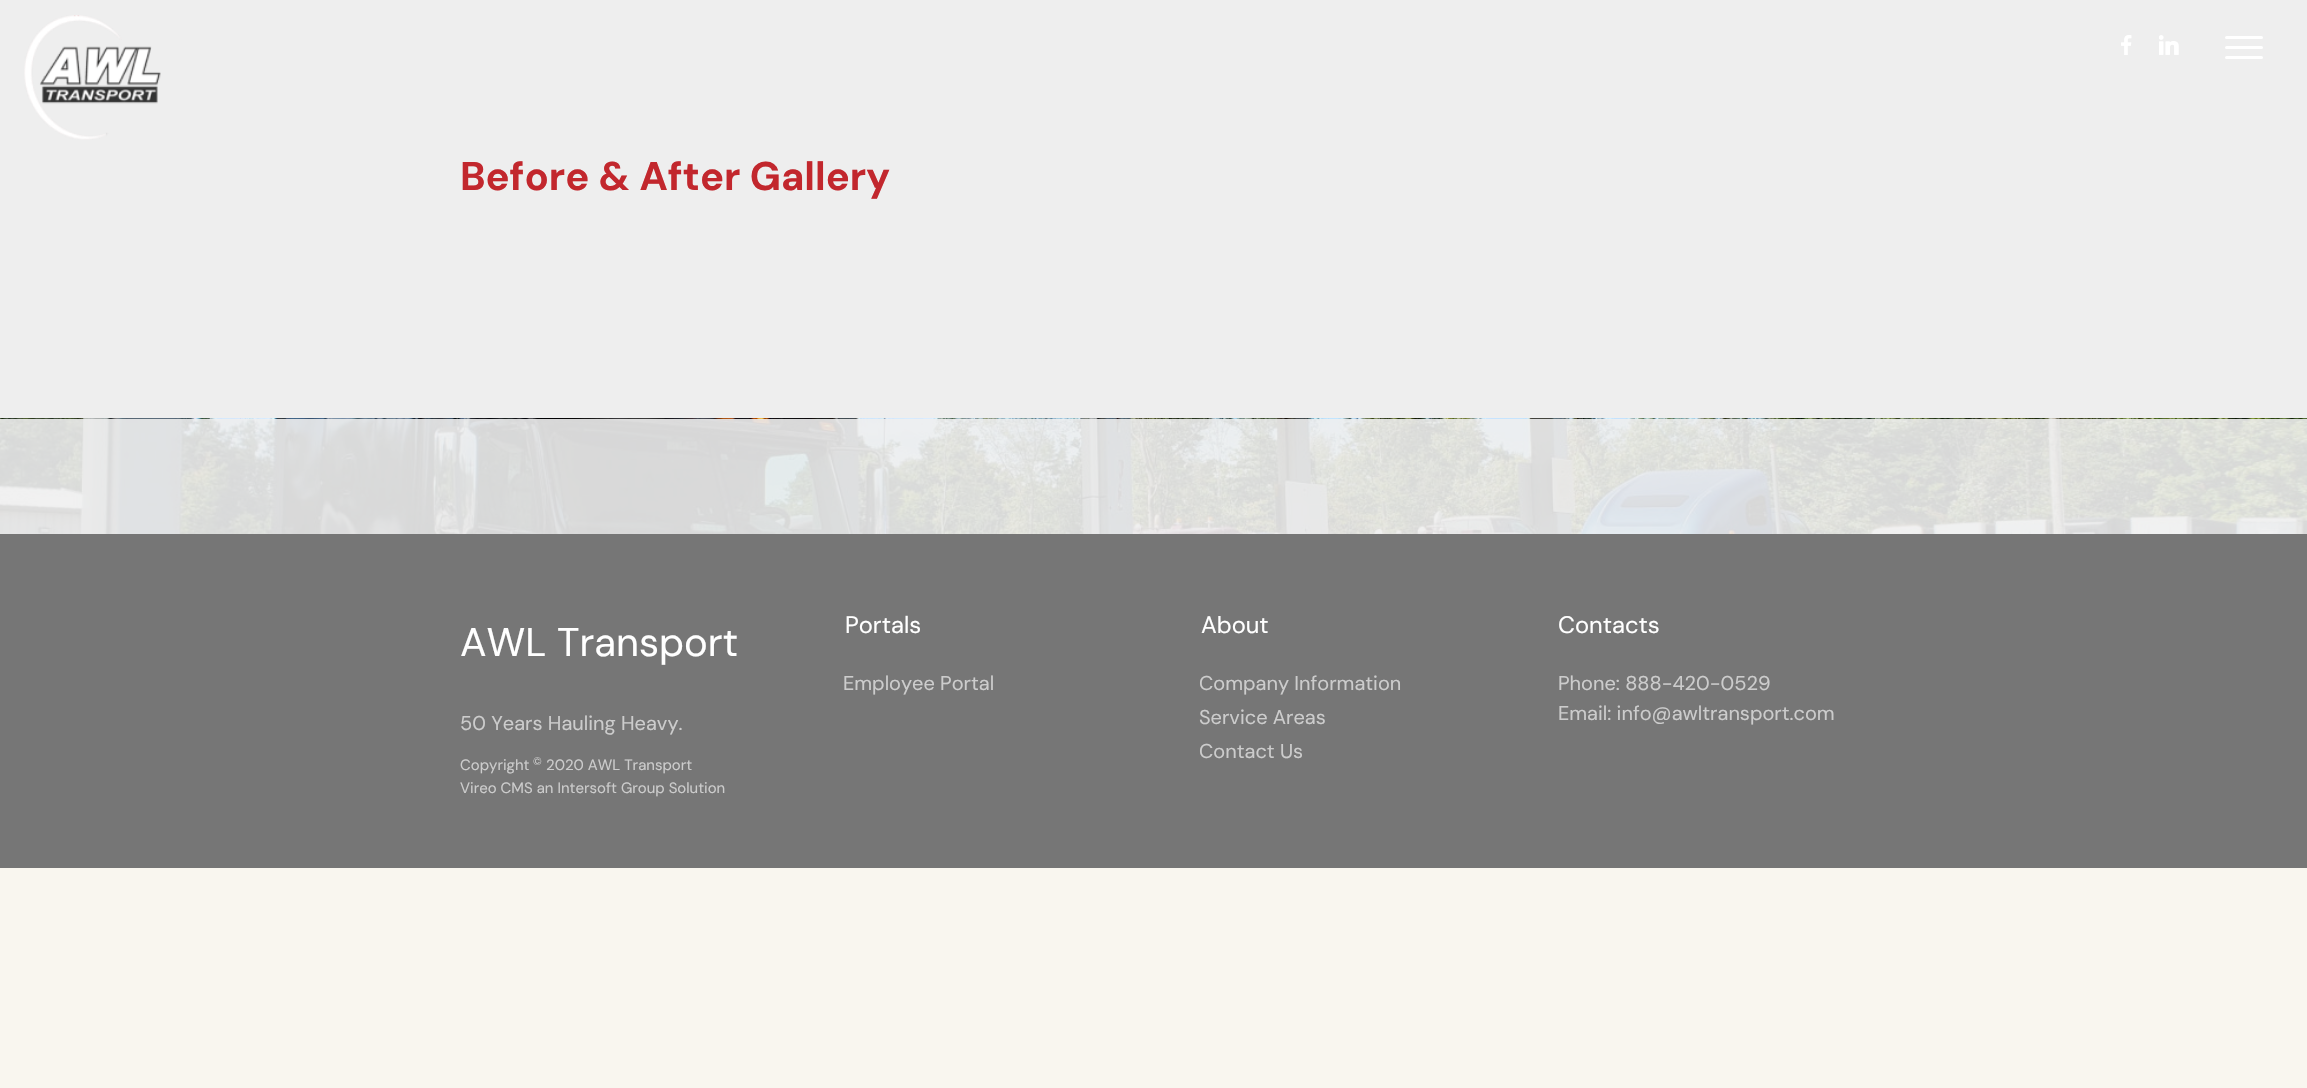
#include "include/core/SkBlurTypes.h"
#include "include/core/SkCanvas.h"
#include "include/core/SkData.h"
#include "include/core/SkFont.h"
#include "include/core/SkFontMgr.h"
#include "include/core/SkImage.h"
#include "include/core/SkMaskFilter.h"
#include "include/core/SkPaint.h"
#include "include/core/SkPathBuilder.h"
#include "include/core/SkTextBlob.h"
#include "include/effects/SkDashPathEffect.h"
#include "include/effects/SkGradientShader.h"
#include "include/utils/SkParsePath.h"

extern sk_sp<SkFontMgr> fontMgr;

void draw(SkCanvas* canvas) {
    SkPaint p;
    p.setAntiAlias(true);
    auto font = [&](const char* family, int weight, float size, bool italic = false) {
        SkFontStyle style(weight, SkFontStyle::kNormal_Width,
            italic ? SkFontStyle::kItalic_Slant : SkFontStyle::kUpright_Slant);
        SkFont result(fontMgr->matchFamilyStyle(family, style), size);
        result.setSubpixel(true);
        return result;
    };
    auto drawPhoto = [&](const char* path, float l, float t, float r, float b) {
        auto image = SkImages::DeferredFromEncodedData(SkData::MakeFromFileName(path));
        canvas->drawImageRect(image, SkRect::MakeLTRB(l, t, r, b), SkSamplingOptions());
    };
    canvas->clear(0xFFF9F6EF);
    p.setColor(0xFFEEEEEE);
    canvas->drawRect(SkRect::MakeLTRB(0, 0, 2307, 418), p);
    drawPhoto("media/1.png", 24, 15, 161, 140);
    p.setColor(0xFFFFFFFF);
    canvas->drawRoundRect(SkRect::MakeLTRB(2225, 36, 2263, 39), 1.5f, 1.5f, p);
    canvas->drawRoundRect(SkRect::MakeLTRB(2225, 46, 2263, 49), 1.5f, 1.5f, p);
    canvas->drawRoundRect(SkRect::MakeLTRB(2225, 56, 2263, 59), 1.5f, 1.5f, p);
    drawPhoto("media/2.png", 2121, 35, 2132, 55);
    drawPhoto("media/3.png", 2159, 35, 2179, 55);
    auto font1 = font("DM Sans", 700, 40);
    p.setColor(0xFFC2272D);
    canvas->drawString("Before & After Gallery", 460, 190, font1, p);
    drawPhoto("media/4.png", 0, 418, 2307, 534);
    p.setColor(0xFF767676);
    canvas->drawRect(SkRect::MakeLTRB(0, 534, 2307, 868), p);
    auto font2 = font("DM Sans", 400, 40);
    p.setColor(0xFFFFFFFF);
    canvas->drawString("AWL Transport", 460, 656, font2, p);
    auto font3 = font("DM Sans", 400, 20);
    p.setColor(0xFFCCCCCC);
    canvas->drawString("50 Years Hauling Heavy.", 460, 730, font3, p);
    auto font4 = font("DM Sans", 400, 15);
    canvas->drawString("Copyright", 460, 770, font4, p);
    auto font5 = font("DM Sans", 400, 11);
    canvas->drawString("©", 533, 765, font5, p);
    canvas->drawString("2020 AWL Transport", 546, 770, font4, p);
    canvas->drawString("Vireo CMS an Intersoft Group Solution", 460, 793, font4, p);
    auto font6 = font("DM Sans", 400, 23.75f);
    p.setColor(0xFFFFFFFF);
    canvas->drawString("Portals", 845, 633, font6, p);
    p.setColor(0xFFCCCCCC);
    canvas->drawString("Employee Portal", 843, 690, font3, p);
    p.setColor(0xFFFFFFFF);
    canvas->drawString("About", 1201, 633, font6, p);
    p.setColor(0xFFCCCCCC);
    {
        const struct { const char* s; float x, y; } items[] = {
            {"Company Information", 1199, 690},
            {"Service Areas", 1199, 724},
            {"Contact Us", 1199, 758},
        };
        for (auto [s, x, y] : items) {
            canvas->drawString(s, x, y, font3, p);
        }
    }
    p.setColor(0xFFFFFFFF);
    canvas->drawString("Contacts", 1558, 633, font6, p);
    p.setColor(0xFFCCCCCC);
    canvas->drawString("Phone: 888-420-0529", 1558, 690, font3, p);
    canvas->drawString("Email: info@awltransport.com", 1558, 720, font3, p);
}
